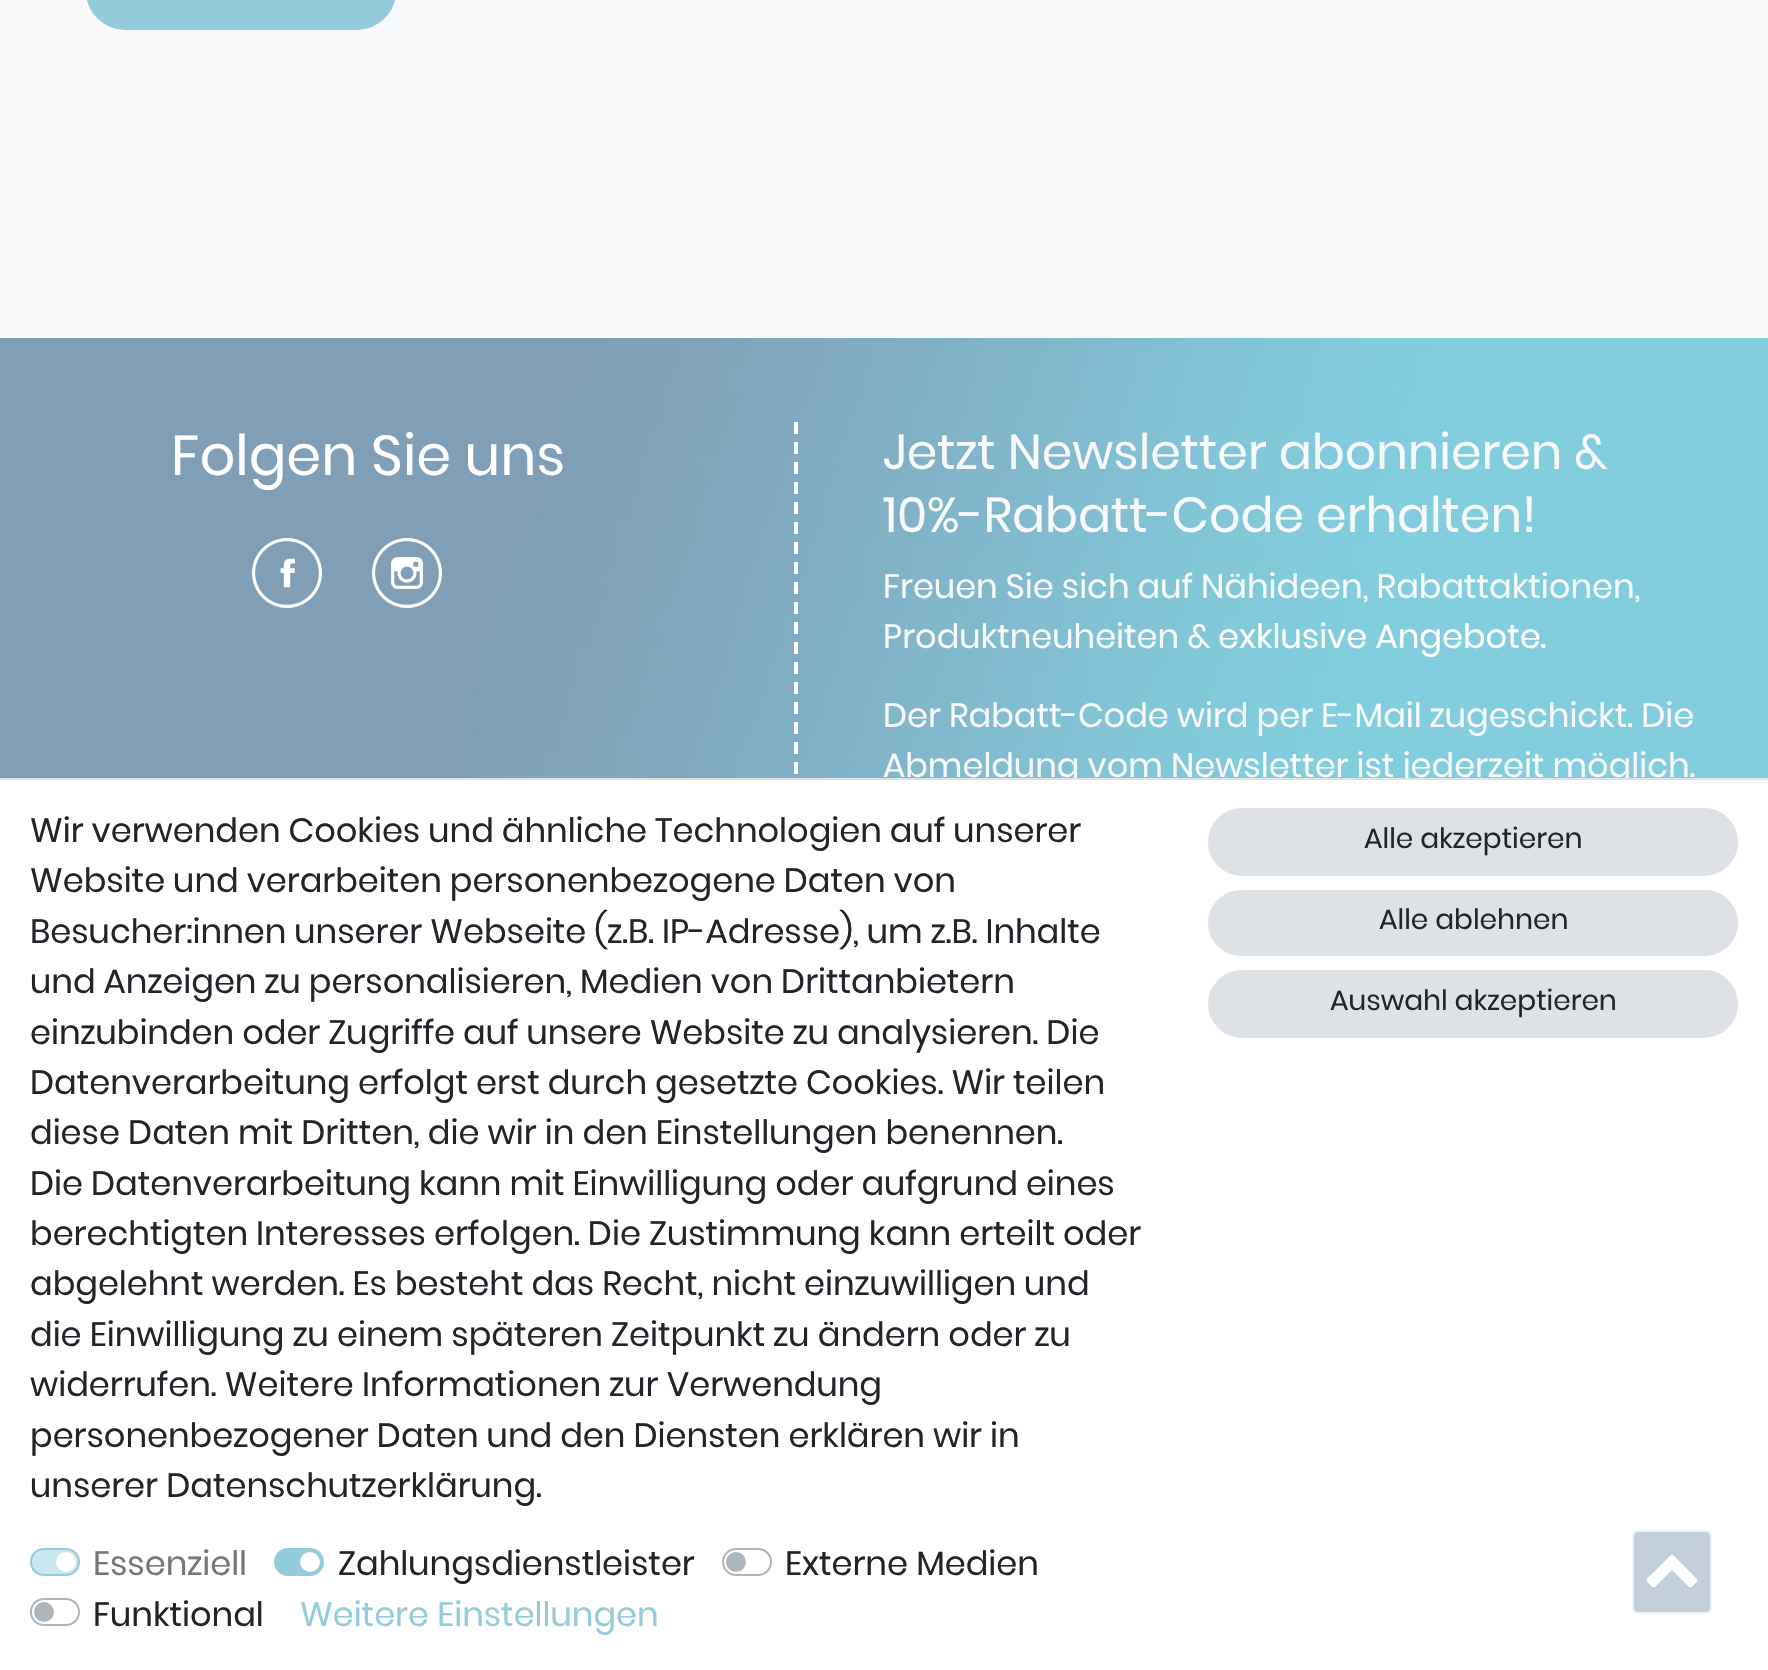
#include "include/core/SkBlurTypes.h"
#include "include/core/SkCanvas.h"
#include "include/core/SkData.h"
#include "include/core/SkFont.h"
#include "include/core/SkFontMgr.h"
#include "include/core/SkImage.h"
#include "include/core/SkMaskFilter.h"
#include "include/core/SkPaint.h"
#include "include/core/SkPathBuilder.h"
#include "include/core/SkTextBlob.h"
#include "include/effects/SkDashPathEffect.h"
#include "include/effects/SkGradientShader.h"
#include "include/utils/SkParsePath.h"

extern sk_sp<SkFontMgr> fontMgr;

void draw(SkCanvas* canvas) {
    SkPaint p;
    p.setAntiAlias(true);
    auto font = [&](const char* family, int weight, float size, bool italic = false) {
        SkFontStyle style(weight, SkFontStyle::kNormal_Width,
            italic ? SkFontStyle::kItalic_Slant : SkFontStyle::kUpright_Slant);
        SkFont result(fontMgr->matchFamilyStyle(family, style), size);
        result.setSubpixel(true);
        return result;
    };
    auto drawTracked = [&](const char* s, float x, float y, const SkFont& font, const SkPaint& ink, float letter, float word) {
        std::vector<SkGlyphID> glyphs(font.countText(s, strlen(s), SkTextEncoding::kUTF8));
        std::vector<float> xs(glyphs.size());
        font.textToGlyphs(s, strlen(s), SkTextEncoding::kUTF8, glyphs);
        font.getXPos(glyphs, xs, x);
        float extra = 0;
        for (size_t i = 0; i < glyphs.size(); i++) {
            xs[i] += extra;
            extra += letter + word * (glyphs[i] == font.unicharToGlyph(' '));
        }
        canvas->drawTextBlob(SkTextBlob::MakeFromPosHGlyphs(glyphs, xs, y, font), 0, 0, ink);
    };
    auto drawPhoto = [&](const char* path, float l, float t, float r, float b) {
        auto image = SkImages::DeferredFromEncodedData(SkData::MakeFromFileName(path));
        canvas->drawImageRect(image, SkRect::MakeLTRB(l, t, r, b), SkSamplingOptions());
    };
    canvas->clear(0xFFF8F9FA);
    p.setColor(0xFF94CCDC);
    canvas->drawRoundRect(SkRect::MakeLTRB(87, -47, 395, 29), 45, 45, p);
    p.setStyle(SkPaint::kStroke_Style);
    p.setStrokeWidth(2);
    canvas->drawRoundRect(SkRect::MakeLTRB(87, -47, 395, 29), 45, 45, p);
    drawPhoto("media/1.png", 0, 338, 1768, 778);
    auto font1 = font("Poppins", 400, 56);
    p.setStyle(SkPaint::kFill_Style);
    p.setColor(0xFFFFFFFF);
    canvas->drawString("Folgen Sie uns", 171, 475, font1, p);
    drawPhoto("media/2.png", 252, 538, 322, 608);
    drawPhoto("media/3.png", 372, 538, 442, 608);
    p.setStyle(SkPaint::kStroke_Style);
    p.setStrokeWidth(4);
    p.setPathEffect(SkDashPathEffect::Make({{12, 8}}, 0));
    canvas->drawPath(SkPathBuilder().moveTo(796, 422).lineTo(796, 1354).detach(), p);
    p.setPathEffect(nullptr);
    auto font2 = font("Poppins", 400, 49);
    p.setStyle(SkPaint::kFill_Style);
    p.setColor(0xFFF8F9FA);
    canvas->drawString("Jetzt Newsletter abonnieren &", 883, 469, font2, p);
    canvas->drawString("10%-Rabatt-Code erhalten!", 883, 532, font2, p);
    auto font3 = font("Poppins", 400, 33.6f);
    drawTracked("Freuen Sie sich auf Nähideen, Rabattaktionen,", 883, 598, font3, p, 0, -0.25f);
    canvas->drawString("Produktneuheiten &", 883, 648, font3, p);
    p.setColor(0xFFFFFFFF);
    canvas->drawString("exklusive Angebote.", 1218, 648, font3, p);
    p.setColor(0xFFF8F9FA);
    drawTracked("Der Rabatt-Code wird per E-Mail zugeschickt. Die", 883, 727, font3, p, 0, -0.25f);
    drawTracked("Abmeldung vom Newsletter ist jederzeit möglich.", 883, 777, font3, p, 0, -0.25f);
    p.setColor(0xFFFFFFFF);
    canvas->drawRect(SkRect::MakeLTRB(0, 780, 1768, 1670), p);
    p.setColor(0xFFDEE2E6);
    canvas->drawRect(SkRect::MakeLTRB(0, 778, 1768, 780), p);
    p.setColor(0xFF212529);
    {
        const struct { const char* s; float x, y; } items[] = {
            {"Wir verwenden Cookies und ähnliche Technologien auf unserer", 30, 842},
            {"Website und verarbeiten personenbezogene Daten von", 30, 892},
            {"Besucher:innen unserer Webseite (z.B. IP-Adresse), um z.B. Inhalte", 30, 943},
            {"und Anzeigen zu personalisieren, Medien von Drittanbietern", 30, 993},
            {"einzubinden oder Zugriffe auf unsere Website zu analysieren. Die", 30, 1044},
            {"Datenverarbeitung erfolgt erst durch gesetzte Cookies. Wir teilen", 30, 1094},
        };
        for (auto [s, x, y] : items) {
            drawTracked(s, x, y, font3, p, 0, -0.25f);
        }
    }
    drawTracked("diese Daten mit Dritten, die wir in den Einstellungen benennen.", 30, 1144, font3, p, 0, -0.1f);
    {
        const struct { const char* s; float x, y; } items[] = {
            {"Die Datenverarbeitung kann mit Einwilligung oder aufgrund eines", 30, 1195},
            {"berechtigten Interesses erfolgen. Die Zustimmung kann erteilt oder", 30, 1245},
            {"abgelehnt werden. Es besteht das Recht, nicht einzuwilligen und", 30, 1295},
        };
        for (auto [s, x, y] : items) {
            drawTracked(s, x, y, font3, p, 0, -0.25f);
        }
    }
    drawTracked("die Einwilligung zu einem späteren Zeitpunkt zu ändern oder zu", 30, 1346, font3, p, 0, -0.1f);
    canvas->drawString("widerrufen. Weitere Informationen zur Verwendung", 30, 1396, font3, p);
    drawTracked("personenbezogener Daten und den Diensten erklären wir in", 30, 1447, font3, p, 0, -0.25f);
    canvas->drawString("unserer Datenschutzerklärung", 30, 1497, font3, p);
    canvas->drawString(".", 536, 1497, font3, p);
    p.setColor(0xFFCAE6EE);
    canvas->drawRoundRect(SkRect::MakeLTRB(31, 1549, 79, 1575), 13, 13, p);
    p.setStyle(SkPaint::kStroke_Style);
    p.setStrokeWidth(2);
    p.setColor(0xFF94CCDC);
    canvas->drawRoundRect(SkRect::MakeLTRB(31, 1549, 79, 1575), 13, 13, p);
    p.setStyle(SkPaint::kFill_Style);
    p.setColor(0xFF767676);
    canvas->drawString("Essenziell", 93, 1575, font3, p);
    p.setColor(0xFFFFFFFF);
    canvas->drawCircle(66, 1562, 10, p);
    p.setColor(0xFF94CCDC);
    canvas->drawRoundRect(SkRect::MakeLTRB(275, 1549, 323, 1575), 13, 13, p);
    p.setStyle(SkPaint::kStroke_Style);
    canvas->drawRoundRect(SkRect::MakeLTRB(275, 1549, 323, 1575), 13, 13, p);
    p.setStyle(SkPaint::kFill_Style);
    p.setColor(0xFF212529);
    canvas->drawString("Zahlungsdienstleister", 338, 1575, font3, p);
    p.setColor(0xFFFFFFFF);
    canvas->drawCircle(310, 1562, 10, p);
    p.setStyle(SkPaint::kStroke_Style);
    p.setColor(0xFFADB5BD);
    canvas->drawRoundRect(SkRect::MakeLTRB(723, 1549, 771, 1575), 13, 13, p);
    p.setStyle(SkPaint::kFill_Style);
    p.setColor(0xFF212529);
    canvas->drawString("Externe Medien", 785, 1575, font3, p);
    p.setColor(0xFFADB5BD);
    canvas->drawCircle(736, 1562, 10, p);
    p.setStyle(SkPaint::kStroke_Style);
    canvas->drawRoundRect(SkRect::MakeLTRB(31, 1599, 79, 1625), 13, 13, p);
    p.setStyle(SkPaint::kFill_Style);
    p.setColor(0xFF212529);
    canvas->drawString("Funktional", 93, 1626, font3, p);
    p.setColor(0xFFADB5BD);
    canvas->drawCircle(44, 1612, 10, p);
    p.setColor(0xFF94CCDC);
    canvas->drawString("Weitere Einstellungen", 300, 1626, font3, p);
    p.setColor(0xFFDEE2E6);
    canvas->drawRoundRect(SkRect::MakeLTRB(1209, 809, 1737, 875), 33, 33, p);
    p.setStyle(SkPaint::kStroke_Style);
    canvas->drawRoundRect(SkRect::MakeLTRB(1209, 809, 1737, 875), 33, 33, p);
    auto font4 = font("Poppins", 400, 28);
    p.setStyle(SkPaint::kFill_Style);
    p.setColor(0xFF212529);
    canvas->drawString("Alle akzeptieren", 1364, 848, font4, p);
    p.setColor(0xFFDEE2E6);
    canvas->drawRoundRect(SkRect::MakeLTRB(1209, 891, 1737, 955), 32, 32, p);
    p.setStyle(SkPaint::kStroke_Style);
    canvas->drawRoundRect(SkRect::MakeLTRB(1209, 891, 1737, 955), 32, 32, p);
    p.setStyle(SkPaint::kFill_Style);
    p.setColor(0xFF212529);
    canvas->drawString("Alle ablehnen", 1379, 929, font4, p);
    p.setColor(0xFFDEE2E6);
    canvas->drawRoundRect(SkRect::MakeLTRB(1209, 971, 1737, 1037), 33, 33, p);
    p.setStyle(SkPaint::kStroke_Style);
    canvas->drawRoundRect(SkRect::MakeLTRB(1209, 971, 1737, 1037), 33, 33, p);
    p.setStyle(SkPaint::kFill_Style);
    p.setColor(0xFF212529);
    canvas->drawString("Auswahl akzeptieren", 1330, 1010, font4, p);
    p.setColor(0xFFC3CFDA);
    canvas->drawRoundRect(SkRect::MakeLTRB(1633, 1531, 1711, 1613), 5, 5, p);
    p.setStyle(SkPaint::kStroke_Style);
    p.setColor(0xFFEFF1F3);
    canvas->drawRoundRect(SkRect::MakeLTRB(1633, 1531, 1711, 1613), 5, 5, p);
    p.setStyle(SkPaint::kFill_Style);
    p.setColor(0xFFFFFFFF);
    canvas->drawPath(SkPathBuilder().moveTo(1697, 1582).cubicTo(1691, 1587, 1692, 1590, 1686, 1584).lineTo(1672, 1570).lineTo(1658, 1584).cubicTo(1653, 1589, 1654, 1588, 1648, 1583).cubicTo(1645, 1579, 1648, 1578, 1651, 1575).lineTo(1667, 1559).cubicTo(1673, 1553, 1671, 1553, 1677, 1559).lineTo(1693, 1575).cubicTo(1693, 1576, 1699, 1579, 1697, 1582).close().detach(), p);
}
